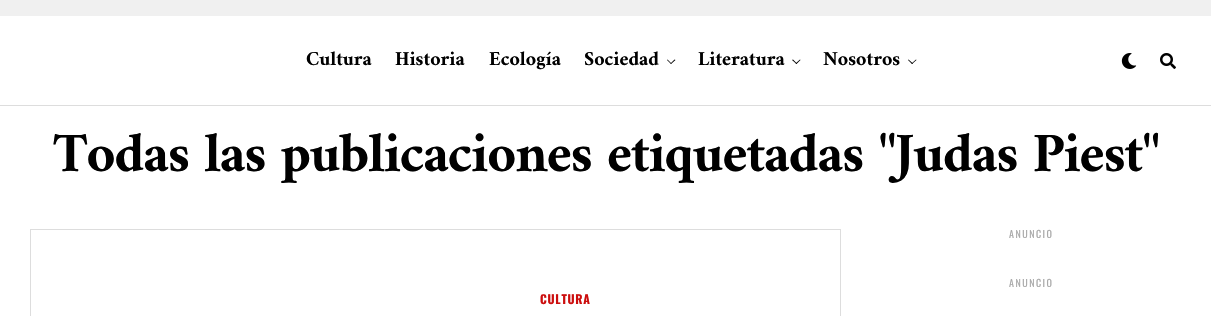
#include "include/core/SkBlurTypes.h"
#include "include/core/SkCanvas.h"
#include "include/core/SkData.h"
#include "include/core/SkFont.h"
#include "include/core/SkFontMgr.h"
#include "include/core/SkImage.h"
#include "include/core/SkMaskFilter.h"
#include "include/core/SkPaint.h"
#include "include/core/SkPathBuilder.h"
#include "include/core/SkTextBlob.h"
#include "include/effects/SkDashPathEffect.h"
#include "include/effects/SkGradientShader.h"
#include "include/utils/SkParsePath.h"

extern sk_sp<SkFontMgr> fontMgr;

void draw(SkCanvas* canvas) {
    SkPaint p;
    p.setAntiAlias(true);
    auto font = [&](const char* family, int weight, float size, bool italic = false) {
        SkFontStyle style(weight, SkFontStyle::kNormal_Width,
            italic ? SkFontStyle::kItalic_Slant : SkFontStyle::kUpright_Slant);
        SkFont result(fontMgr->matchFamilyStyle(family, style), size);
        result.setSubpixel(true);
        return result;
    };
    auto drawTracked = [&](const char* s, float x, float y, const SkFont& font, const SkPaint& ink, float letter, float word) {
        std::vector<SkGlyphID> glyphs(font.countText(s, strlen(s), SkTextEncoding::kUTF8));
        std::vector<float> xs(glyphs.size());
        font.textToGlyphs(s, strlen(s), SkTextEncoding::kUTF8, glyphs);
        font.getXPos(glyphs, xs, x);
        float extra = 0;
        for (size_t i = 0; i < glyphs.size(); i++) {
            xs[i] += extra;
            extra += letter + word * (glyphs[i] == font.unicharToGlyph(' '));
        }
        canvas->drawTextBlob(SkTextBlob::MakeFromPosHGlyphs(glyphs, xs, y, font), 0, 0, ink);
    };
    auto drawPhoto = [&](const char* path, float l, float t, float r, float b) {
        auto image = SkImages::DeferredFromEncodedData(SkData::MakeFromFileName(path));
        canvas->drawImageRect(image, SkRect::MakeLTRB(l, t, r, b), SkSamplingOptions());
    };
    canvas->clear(0xFFFFFFFF);
    p.setColor(0xFFF0F0F0);
    canvas->drawRect(SkRect::MakeLTRB(0, 0, 1211, 16), p);
    p.setColor(0xFFDDDDDD);
    canvas->drawRect(SkRect::MakeLTRB(0, 105, 1211, 106), p);
    auto font1 = font("Amiri", 700, 20);
    p.setColor(0xFF000000);
    {
        const struct { const char* s; float x, y; } items[] = {
            {"Cultura", 306, 65},
            {"Historia", 395, 65},
            {"Ecología", 489, 65},
            {"Sociedad", 584, 65},
        };
        for (auto [s, x, y] : items) {
            canvas->drawString(s, x, y, font1, p);
        }
    }
    canvas->drawPath(SkPathBuilder().moveTo(674.5f, 59.5f).lineTo(675.5f, 60).lineTo(671, 64).lineTo(670.5f, 63.5f).close().detach(), p);
    canvas->drawPath(SkPathBuilder().moveTo(667.5f, 59.5f).lineTo(671.5f, 63.5f).lineTo(671, 64).lineTo(667, 60).close().detach(), p);
    canvas->drawString("Literatura", 698, 65, font1, p);
    canvas->drawPath(SkPathBuilder().moveTo(800, 59.5f).lineTo(800.5f, 60).lineTo(796.5f, 64).lineTo(795.5f, 63.5f).close().detach(), p);
    canvas->drawPath(SkPathBuilder().moveTo(793, 59.5f).lineTo(797, 63.5f).lineTo(796.5f, 64).lineTo(792, 60).close().detach(), p);
    canvas->drawString("Nosotros", 823, 65, font1, p);
    canvas->drawPath(SkPathBuilder().moveTo(916, 59.5f).lineTo(916.5f, 60).lineTo(912, 64).lineTo(911.5f, 63.5f).close().detach(), p);
    canvas->drawPath(SkPathBuilder().moveTo(908.5f, 59.5f).lineTo(913, 63.5f).lineTo(912, 64).lineTo(908, 60).close().detach(), p);
    drawPhoto("media/1.png", 1121, 53, 1137, 69);
    drawPhoto("media/2.png", 1160, 53, 1176, 69);
    auto font2 = font("Amiri", 700, 56);
    drawTracked("Todas las publicaciones etiquetadas \"Judas Piest\"", 53, 171, font2, p, -1.1f, 0);
    auto font3 = font("Oswald", 400, 10);
    p.setColor(0xFFAAAAAA);
    drawTracked("ANUNCIO", 1009, 238, font3, p, 1.5f, 0);
    drawTracked("ANUNCIO", 1009, 287, font3, p, 1.5f, 0);
    p.setStyle(SkPaint::kStroke_Style);
    p.setStrokeWidth(1);
    p.setColor(0xFFDDDDDD);
    canvas->drawRect(SkRect::MakeLTRB(30.5f, 229.5f, 840.5f, 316.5f), p);
    auto font4 = font("Oswald", 700, 12);
    p.setStyle(SkPaint::kFill_Style);
    p.setColor(0xFFCC0E0E);
    drawTracked("CULTURA", 540, 304, font4, p, 0.75f, 0);
}
